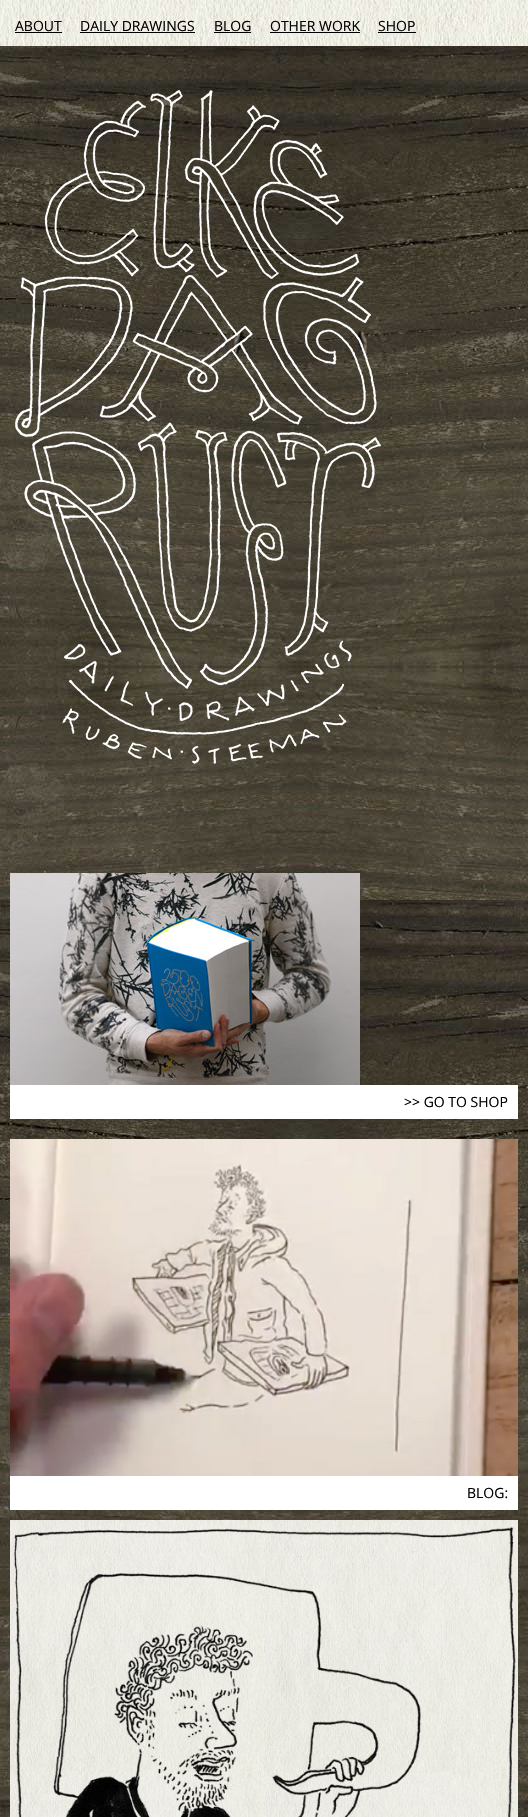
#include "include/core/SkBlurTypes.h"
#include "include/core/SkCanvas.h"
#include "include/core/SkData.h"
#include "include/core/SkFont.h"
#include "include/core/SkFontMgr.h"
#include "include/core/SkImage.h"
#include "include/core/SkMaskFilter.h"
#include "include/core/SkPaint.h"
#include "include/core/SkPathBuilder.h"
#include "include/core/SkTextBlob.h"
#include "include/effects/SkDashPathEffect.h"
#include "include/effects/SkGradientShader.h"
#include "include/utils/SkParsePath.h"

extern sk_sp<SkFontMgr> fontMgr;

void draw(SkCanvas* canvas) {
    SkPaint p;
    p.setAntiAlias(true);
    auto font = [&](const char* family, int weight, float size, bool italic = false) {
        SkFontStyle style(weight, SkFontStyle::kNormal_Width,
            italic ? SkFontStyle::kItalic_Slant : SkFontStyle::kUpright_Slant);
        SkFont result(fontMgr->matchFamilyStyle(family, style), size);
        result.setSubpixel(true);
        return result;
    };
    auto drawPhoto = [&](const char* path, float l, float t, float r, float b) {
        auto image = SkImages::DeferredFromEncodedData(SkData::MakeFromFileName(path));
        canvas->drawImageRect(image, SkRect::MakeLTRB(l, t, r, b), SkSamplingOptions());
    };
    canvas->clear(0xFFFFFFFF);
    drawPhoto("media/1.png", 0, 46, 528, 1817);
    drawPhoto("media/2.png", 0, 0, 528, 46);
    auto font1 = font("Open Sans", 400, 14);
    p.setColor(0xFF000000);
    canvas->drawString("ABOUT", 15, 31, font1, p);
    canvas->drawRect(SkRect::MakeLTRB(15, 32, 62, 33), p);
    canvas->drawString("DAILY DRAWINGS", 80, 31, font1, p);
    canvas->drawRect(SkRect::MakeLTRB(80, 32, 195, 33), p);
    canvas->drawString("BLOG", 214, 31, font1, p);
    canvas->drawRect(SkRect::MakeLTRB(214, 32, 251, 33), p);
    canvas->drawString("OTHER WORK", 270, 31, font1, p);
    canvas->drawRect(SkRect::MakeLTRB(270, 32, 360, 33), p);
    canvas->drawString("SHOP", 378, 31, font1, p);
    canvas->drawRect(SkRect::MakeLTRB(378, 32, 416, 33), p);
    drawPhoto("media/3.png", 15, 90, 389, 764);
    drawPhoto("media/4.png", 10, 873, 360, 1085);
    p.setColor(0xFFFFFFFF);
    canvas->drawRect(SkRect::MakeLTRB(10, 1085, 518, 1119), p);
    p.setColor(0xFF000000);
    canvas->drawString(">> GO TO SHOP", 404, 1107, font1, p);
    drawPhoto("media/5.png", 10, 1139, 518, 1476);
    p.setColor(0xFFFFFFFF);
    canvas->drawRect(SkRect::MakeLTRB(10, 1476, 518, 1510), p);
    p.setColor(0xFF000000);
    canvas->drawString("BLOG:", 467, 1498, font1, p);
    drawPhoto("media/6.png", 10, 1520, 518, 1817);
}
